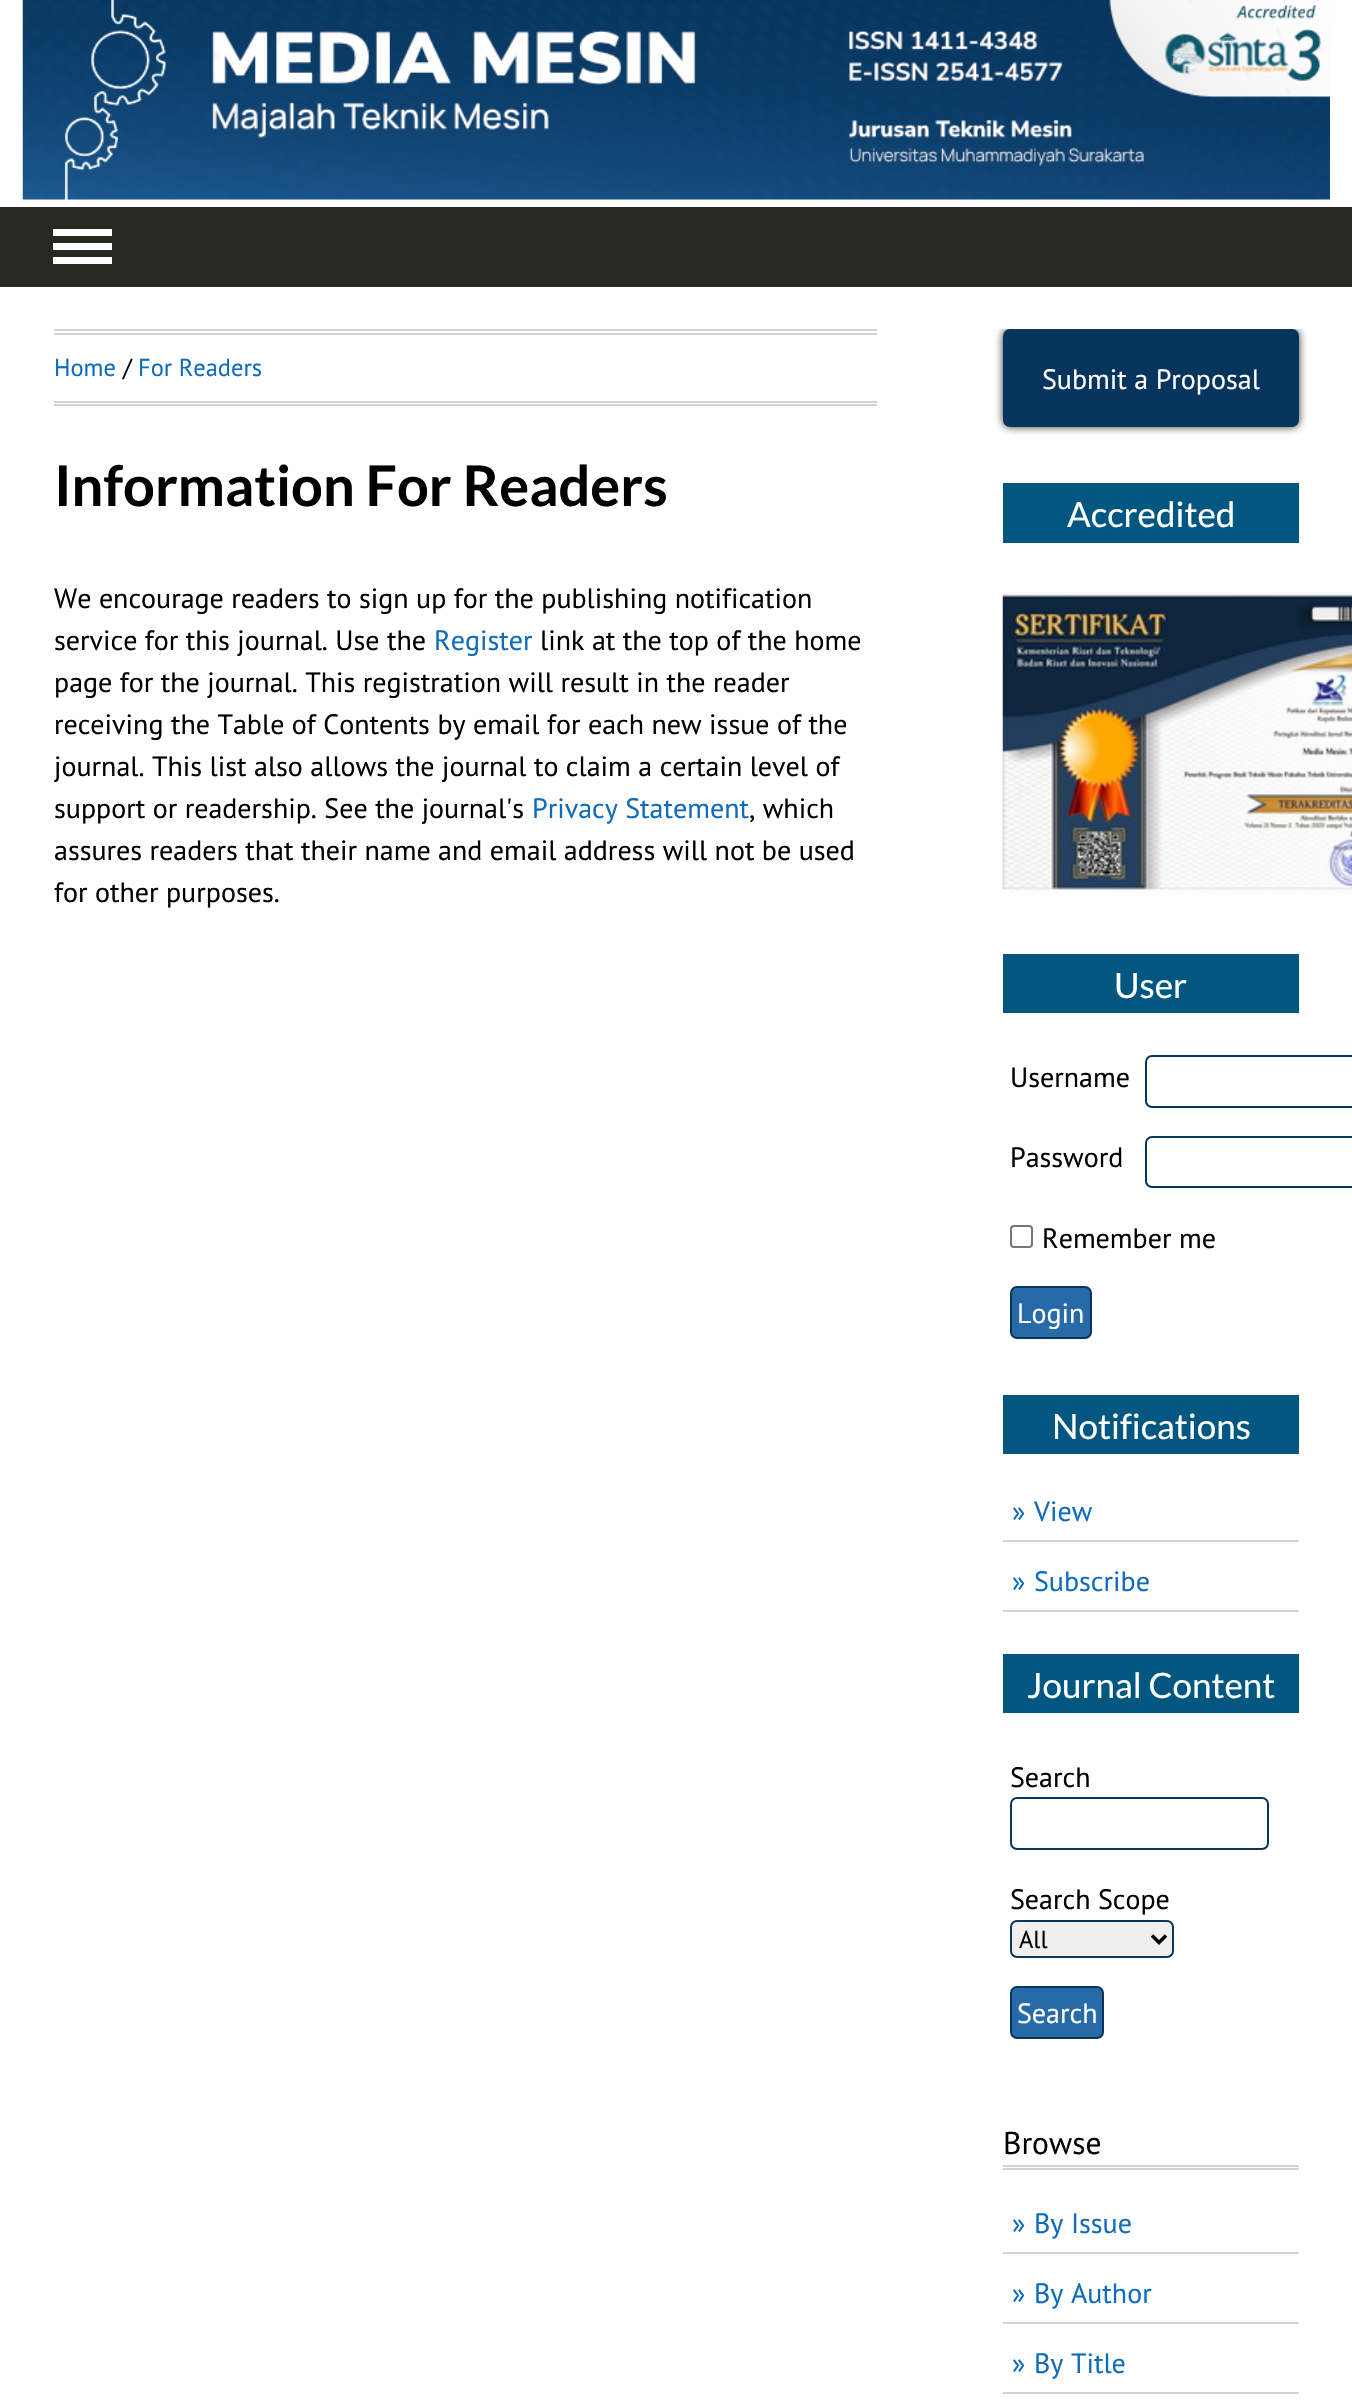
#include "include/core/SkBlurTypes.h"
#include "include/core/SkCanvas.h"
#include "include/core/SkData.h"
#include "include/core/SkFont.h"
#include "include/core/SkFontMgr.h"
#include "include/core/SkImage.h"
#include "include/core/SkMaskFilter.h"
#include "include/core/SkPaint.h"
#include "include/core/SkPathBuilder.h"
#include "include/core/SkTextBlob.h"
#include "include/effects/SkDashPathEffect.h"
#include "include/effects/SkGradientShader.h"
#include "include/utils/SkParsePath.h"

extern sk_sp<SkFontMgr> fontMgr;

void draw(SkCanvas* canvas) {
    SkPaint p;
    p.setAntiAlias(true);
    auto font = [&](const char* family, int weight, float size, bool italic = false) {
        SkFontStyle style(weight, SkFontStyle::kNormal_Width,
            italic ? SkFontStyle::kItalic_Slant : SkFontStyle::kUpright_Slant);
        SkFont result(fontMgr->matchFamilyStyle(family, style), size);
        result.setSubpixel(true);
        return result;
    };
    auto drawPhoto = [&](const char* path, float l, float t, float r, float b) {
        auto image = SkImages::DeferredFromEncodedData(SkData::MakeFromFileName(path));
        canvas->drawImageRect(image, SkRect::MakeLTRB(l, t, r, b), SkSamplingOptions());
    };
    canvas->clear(0xFFFFFFFF);
    drawPhoto("media/1.png", 22, 0, 1330, 200);
    {
        const struct { float l, t, r, b; SkColor color; } items[] = {
            {0, 207, 1352, 287, 0xFF272822},
            {53, 229, 112, 236, 0xFFFFFFFF},
            {53, 243, 112, 250, 0xFFFFFFFF},
            {53, 257, 112, 264, 0xFFFFFFFF},
            {54, 329, 877, 331, 0xFFD1D3D5},
            {54, 333, 877, 335, 0xFFD1D3D5},
            {54, 401, 877, 403, 0xFFD1D3D5},
            {54, 404, 877, 406, 0xFFD1D3D5},
        };
        for (auto [l, t, r, b, color] : items) {
            p.setColor(color);
            canvas->drawRect(SkRect::MakeLTRB(l, t, r, b), p);
        }
    }
    auto font1 = font("PT Sans", 400, 24.5f);
    p.setColor(0xFF0E6BBD);
    canvas->drawString("Home", 54, 376, font1, p);
    p.setColor(0xFF000000);
    canvas->drawString("/", 123, 376, font1, p);
    p.setColor(0xFF0E6BBD);
    canvas->drawString("For Readers", 138, 376, font1, p);
    auto font2 = font("Lato", 700, 56);
    p.setColor(0xFF000000);
    canvas->drawString("Information For Readers", 54, 506, font2, p);
    auto font3 = font("PT Sans", 400, 28);
    canvas->drawString("We encourage readers to sign up for the publishing notification", 54, 608, font3, p);
    canvas->drawString("service for this journal. Use the", 54, 650, font3, p);
    p.setColor(0xFF0E6BBD);
    canvas->drawString("Register", 434, 650, font3, p);
    p.setColor(0xFF000000);
    {
        const struct { const char* s; float x, y; } items[] = {
            {"link at the top of the home", 540, 650},
            {"page for the journal. This registration will result in the reader", 54, 692},
            {"receiving the Table of Contents by email for each new issue of the", 54, 734},
            {"journal. This list also allows the journal to claim a certain level of", 54, 776},
            {"support or readership. See the journal's", 54, 818},
        };
        for (auto [s, x, y] : items) {
            canvas->drawString(s, x, y, font3, p);
        }
    }
    p.setColor(0xFF0E6BBD);
    canvas->drawString("Privacy Statement", 532, 818, font3, p);
    p.setColor(0xFF000000);
    {
        const struct { const char* s; float x, y; } items[] = {
            {", which", 749, 818},
            {"assures readers that their name and email address will not be used", 54, 860},
            {"for other purposes.", 54, 902},
        };
        for (auto [s, x, y] : items) {
            canvas->drawString(s, x, y, font3, p);
        }
    }
    canvas->save();
    canvas->clipRect(SkRect::MakeLTRB(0, 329, 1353, 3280));
    p.setColor(0xFF333333);
    p.setMaskFilter(SkMaskFilter::MakeBlur(kNormal_SkBlurStyle, 4.5f));
    canvas->drawRoundRect(SkRect::MakeLTRB(1003, 329, 1299, 427), 7, 7, p);
    p.setMaskFilter(nullptr);
    canvas->restore();
    p.setColor(0xFF07355E);
    canvas->drawRoundRect(SkRect::MakeLTRB(1003, 329, 1299, 427), 7, 7, p);
    p.setColor(0xFFFFFFFF);
    canvas->drawString("Submit a Proposal", 1042, 389, font3, p);
    p.setColor(0xFF01577F);
    canvas->drawRect(SkRect::MakeLTRB(1003, 483, 1299, 543), p);
    auto font4 = font("Lato", 400, 35);
    p.setColor(0xFFFFFFFF);
    canvas->drawString("Accredited", 1067, 527, font4, p);
    drawPhoto("media/2.png", 1002, 592, 1352, 896);
    p.setColor(0xFF01577F);
    canvas->drawRect(SkRect::MakeLTRB(1003, 954, 1299, 1013), p);
    p.setColor(0xFFFFFFFF);
    canvas->drawString("User", 1114, 998, font4, p);
    p.setColor(0xFF000000);
    canvas->drawString("Username", 1010, 1087, font3, p);
    p.setStyle(SkPaint::kStroke_Style);
    p.setStrokeWidth(2);
    p.setColor(0xFF07355E);
    canvas->drawRoundRect(SkRect::MakeLTRB(1146, 1056, 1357, 1107), 6, 6, p);
    p.setStyle(SkPaint::kFill_Style);
    p.setColor(0xFF000000);
    canvas->drawString("Password", 1010, 1167, font3, p);
    p.setStyle(SkPaint::kStroke_Style);
    p.setColor(0xFF07355E);
    canvas->drawRoundRect(SkRect::MakeLTRB(1146, 1137, 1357, 1187), 6, 6, p);
    p.setColor(0xFF767676);
    canvas->drawRoundRect(SkRect::MakeLTRB(1011, 1226, 1032, 1247), 3, 3, p);
    p.setStyle(SkPaint::kFill_Style);
    p.setColor(0xFF000000);
    canvas->drawString("Remember me", 1042, 1248, font3, p);
    p.setColor(0xFF266BA8);
    canvas->drawRoundRect(SkRect::MakeLTRB(1011, 1287, 1091, 1338), 6, 6, p);
    p.setStyle(SkPaint::kStroke_Style);
    p.setColor(0xFF07355E);
    canvas->drawRoundRect(SkRect::MakeLTRB(1011, 1287, 1091, 1338), 6, 6, p);
    p.setStyle(SkPaint::kFill_Style);
    p.setColor(0xFFFFFFFF);
    canvas->drawString("Login", 1017, 1323, font3, p);
    p.setColor(0xFF01577F);
    canvas->drawRect(SkRect::MakeLTRB(1003, 1395, 1299, 1454), p);
    p.setColor(0xFFFFFFFF);
    canvas->drawString("Notifications", 1052, 1439, font4, p);
    p.setColor(0xFFD1D3D5);
    canvas->drawRect(SkRect::MakeLTRB(1003, 1540, 1299, 1542), p);
    p.setColor(0xFF0E6BBD);
    canvas->drawString("»", 1012, 1521, font3, p);
    canvas->drawString("View", 1034, 1521, font3, p);
    p.setColor(0xFFD1D3D5);
    canvas->drawRect(SkRect::MakeLTRB(1003, 1610, 1299, 1612), p);
    p.setColor(0xFF0E6BBD);
    canvas->drawString("»", 1012, 1591, font3, p);
    canvas->drawString("Subscribe", 1034, 1591, font3, p);
    p.setColor(0xFF01577F);
    canvas->drawRect(SkRect::MakeLTRB(1003, 1654, 1299, 1713), p);
    p.setColor(0xFFFFFFFF);
    canvas->drawString("Journal Content", 1027, 1698, font4, p);
    p.setColor(0xFF000000);
    canvas->drawString("Search", 1010, 1787, font3, p);
    p.setStyle(SkPaint::kStroke_Style);
    p.setColor(0xFF07355E);
    canvas->drawRoundRect(SkRect::MakeLTRB(1011, 1798, 1268, 1849), 6, 6, p);
    p.setStyle(SkPaint::kFill_Style);
    p.setColor(0xFF000000);
    canvas->drawString("Search Scope", 1010, 1909, font3, p);
    p.setColor(0xFFEFEFEF);
    canvas->drawRoundRect(SkRect::MakeLTRB(1011, 1921, 1173, 1957), 6, 6, p);
    p.setStyle(SkPaint::kStroke_Style);
    p.setColor(0xFF07355E);
    canvas->drawRoundRect(SkRect::MakeLTRB(1011, 1921, 1173, 1957), 6, 6, p);
    p.setStrokeWidth(3.5f);
    p.setColor(0xFF000000);
    canvas->drawPath(SkPathBuilder().moveTo(1152, 1935.5f).lineTo(1159, 1942.5f).lineTo(1166, 1935.5f).detach(), p);
    p.setStyle(SkPaint::kFill_Style);
    canvas->drawString("All", 1019, 1948, font1, p);
    p.setColor(0xFF266BA8);
    canvas->drawRoundRect(SkRect::MakeLTRB(1011, 1987, 1103, 2038), 6, 6, p);
    p.setStyle(SkPaint::kStroke_Style);
    p.setStrokeWidth(2);
    p.setColor(0xFF07355E);
    canvas->drawRoundRect(SkRect::MakeLTRB(1011, 1987, 1103, 2038), 6, 6, p);
    p.setStyle(SkPaint::kFill_Style);
    p.setColor(0xFFFFFFFF);
    canvas->drawString("Search", 1017, 2023, font3, p);
    p.setColor(0xFFD1D3D5);
    canvas->drawRect(SkRect::MakeLTRB(1003, 2165, 1299, 2167), p);
    canvas->drawRect(SkRect::MakeLTRB(1003, 2168, 1299, 2170), p);
    auto font5 = font("PT Sans", 400, 31.5f);
    p.setColor(0xFF000000);
    canvas->drawString("Browse", 1003, 2154, font5, p);
    p.setColor(0xFFD1D3D5);
    canvas->drawRect(SkRect::MakeLTRB(1003, 2252, 1299, 2254), p);
    p.setColor(0xFF0E6BBD);
    canvas->drawString("»", 1012, 2233, font3, p);
    canvas->drawString("By Issue", 1034, 2233, font3, p);
    p.setColor(0xFFD1D3D5);
    canvas->drawRect(SkRect::MakeLTRB(1003, 2322, 1299, 2324), p);
    p.setColor(0xFF0E6BBD);
    canvas->drawString("»", 1012, 2303, font3, p);
    canvas->drawString("By Author", 1034, 2303, font3, p);
    p.setColor(0xFFD1D3D5);
    canvas->drawRect(SkRect::MakeLTRB(1003, 2392, 1299, 2394), p);
    p.setColor(0xFF0E6BBD);
    canvas->drawString("»", 1012, 2373, font3, p);
    canvas->drawString("By Title", 1034, 2373, font3, p);
}
